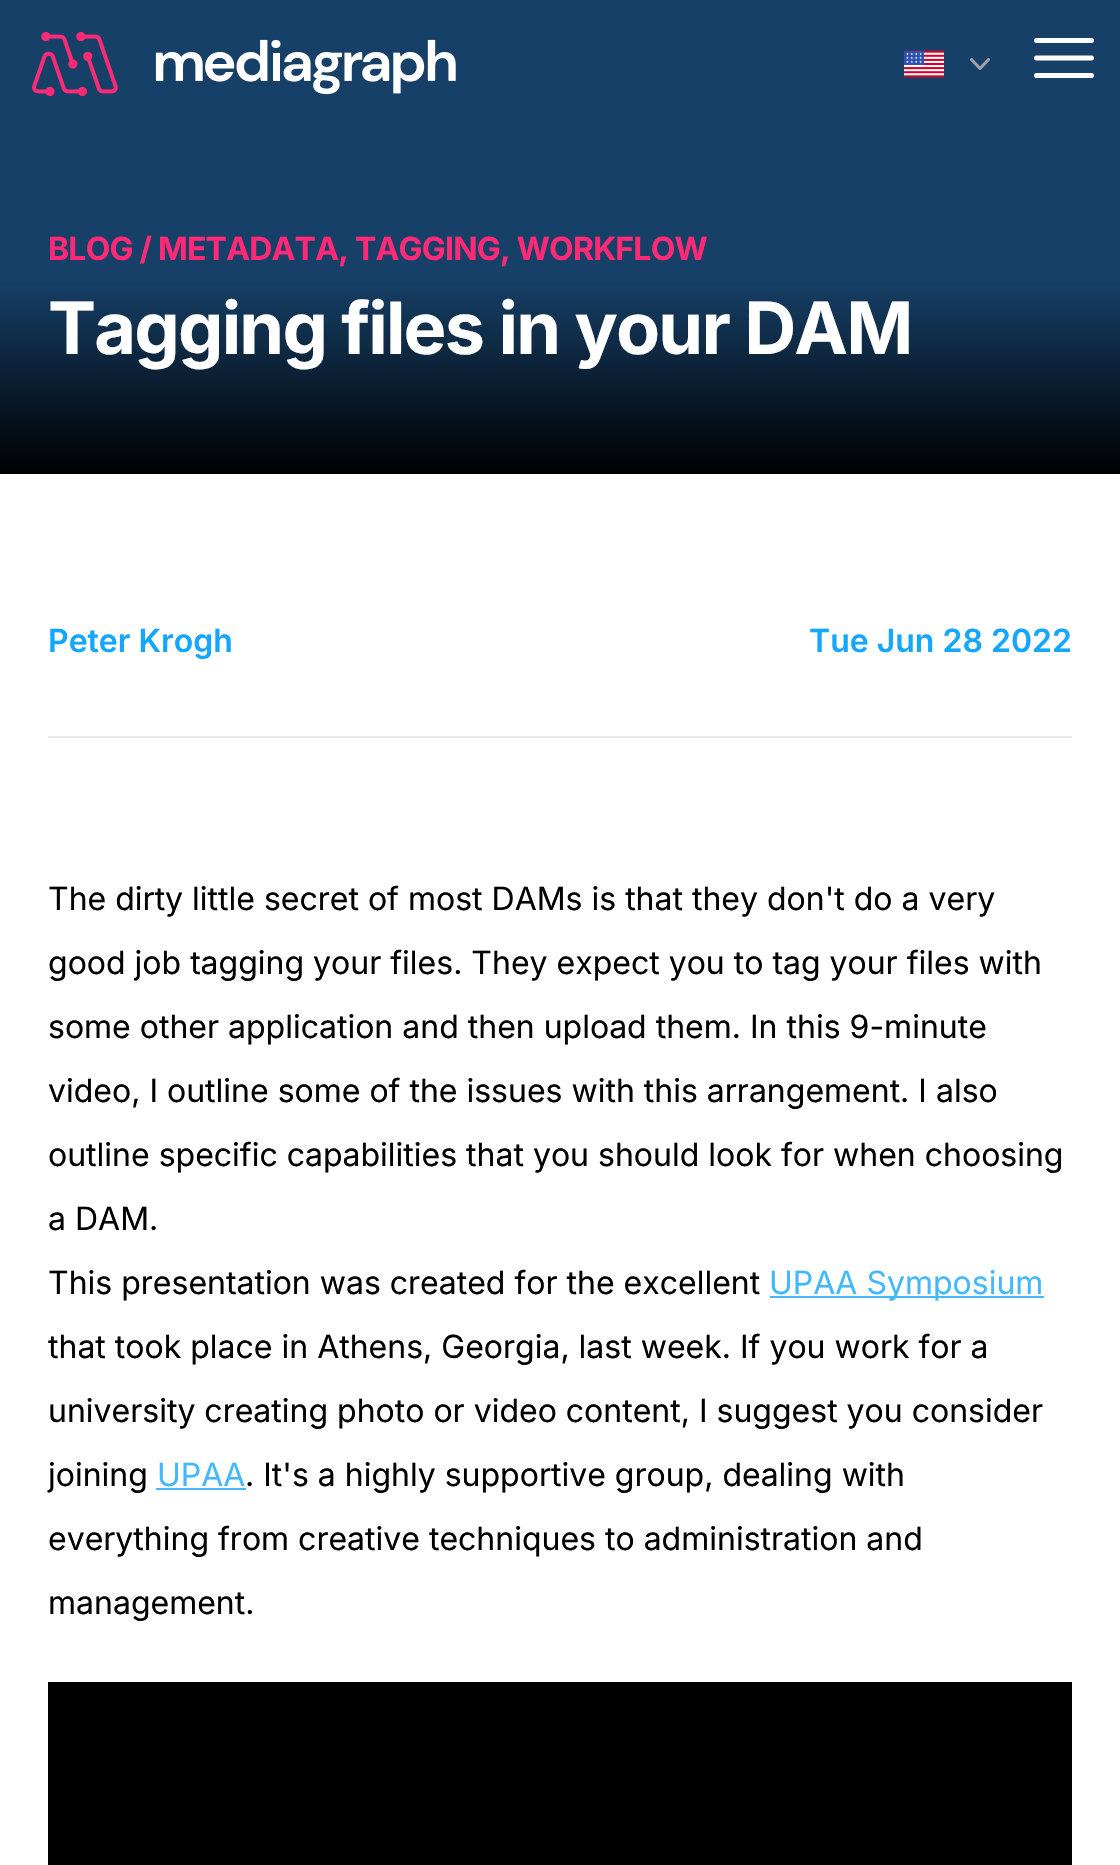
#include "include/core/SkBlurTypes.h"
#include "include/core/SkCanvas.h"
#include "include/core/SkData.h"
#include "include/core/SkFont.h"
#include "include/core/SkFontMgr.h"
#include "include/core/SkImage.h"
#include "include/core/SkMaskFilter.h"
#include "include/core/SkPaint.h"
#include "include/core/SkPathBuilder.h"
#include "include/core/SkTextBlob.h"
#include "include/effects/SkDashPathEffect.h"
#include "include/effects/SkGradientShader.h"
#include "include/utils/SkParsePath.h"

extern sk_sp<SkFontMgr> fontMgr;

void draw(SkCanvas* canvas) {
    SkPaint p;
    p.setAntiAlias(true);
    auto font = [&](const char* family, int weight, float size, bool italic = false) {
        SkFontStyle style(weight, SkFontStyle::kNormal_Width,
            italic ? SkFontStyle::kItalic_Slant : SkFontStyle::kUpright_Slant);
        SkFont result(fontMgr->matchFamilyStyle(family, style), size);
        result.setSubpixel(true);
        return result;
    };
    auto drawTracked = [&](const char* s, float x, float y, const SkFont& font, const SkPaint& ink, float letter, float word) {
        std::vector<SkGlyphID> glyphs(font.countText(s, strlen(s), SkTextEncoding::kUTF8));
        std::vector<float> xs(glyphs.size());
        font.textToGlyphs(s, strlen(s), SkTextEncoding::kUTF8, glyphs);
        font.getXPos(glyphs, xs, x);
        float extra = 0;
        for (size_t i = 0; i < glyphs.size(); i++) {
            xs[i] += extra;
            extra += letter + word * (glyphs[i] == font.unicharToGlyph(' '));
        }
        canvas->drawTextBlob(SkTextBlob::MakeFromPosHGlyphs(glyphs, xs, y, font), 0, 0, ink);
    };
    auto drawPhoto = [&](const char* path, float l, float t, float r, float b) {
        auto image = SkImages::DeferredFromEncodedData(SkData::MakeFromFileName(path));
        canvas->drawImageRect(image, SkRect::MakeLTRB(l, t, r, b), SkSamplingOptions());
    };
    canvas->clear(0xFF164068);
    drawPhoto("media/1.png", 32, 32, 456, 96);
    drawPhoto("media/2.png", 904, 50, 944, 78);
    drawPhoto("media/3.png", 970, 58, 990, 70);
    p.setStyle(SkPaint::kStroke_Style);
    p.setStrokeWidth(5);
    p.setStrokeCap(SkPaint::kRound_Cap);
    p.setStrokeJoin(SkPaint::kRound_Join);
    p.setColor(0xFFFFFFFF);
    canvas->drawPath(SkPathBuilder().moveTo(1036.5f, 40.5f).lineTo(1091.5f, 40.5f).moveTo(1036.5f, 58).lineTo(1091.5f, 58).moveTo(1036.5f, 75.5f).lineTo(1091.5f, 75.5f).detach(), p);
    auto font1 = font("Inter", 700, 32);
    p.setStyle(SkPaint::kFill_Style);
    p.setColor(0xFFFF2976);
    drawTracked("BLOG / METADATA, TAGGING, WORKFLOW", 48, 260, font1, p, -0.8f, 0);
    {
        const SkColor colors[] = {0xFF164068, 0xFF000000};
        const float stops[] = {0.43f, 1};
        const SkPoint ends[] = {{560, 128}, {560, 475}};
        p.setShader(SkGradientShader::MakeLinear(ends, colors, stops, 2, SkTileMode::kClamp));
        p.setAlpha(255);
    }
    canvas->drawRect(SkRect::MakeLTRB(0, 282, 1120, 474), p);
    auto font2 = font("Inter", 700, 72);
    p.setShader(nullptr);
    p.setColor(0xFFFFFFFF);
    drawTracked("Tagging files in your DAM", 48, 354, font2, p, -1.8f, 0);
    canvas->drawRect(SkRect::MakeLTRB(0, 474, 1120, 1865), p);
    auto font3 = font("Inter", 600, 32);
    p.setColor(0xFF15A6FF);
    canvas->drawString("Peter Krogh", 48, 652, font3, p);
    canvas->drawString("Tue Jun 28 2022", 809, 652, font3, p);
    p.setColor(0xFFE5E7EB);
    canvas->drawRect(SkRect::MakeLTRB(48, 736, 1072, 738), p);
    auto font4 = font("Inter", 400, 32);
    p.setColor(0xFF000000);
    {
        const struct { const char* s; float x, y; } items[] = {
            {"The dirty little secret of most DAMs is that they don't do a very", 48, 910},
            {"good job tagging your files. They expect you to tag your files with", 48, 974},
            {"some other application and then upload them. In this 9-minute", 48, 1038},
            {"video, I outline some of the issues with this arrangement. I also", 48, 1102},
            {"outline specific capabilities that you should look for when choosing", 48, 1166},
            {"a DAM.", 48, 1230},
            {"This presentation was created for the excellent", 48, 1294},
        };
        for (auto [s, x, y] : items) {
            canvas->drawString(s, x, y, font4, p);
        }
    }
    p.setColor(0xFF44B8FF);
    canvas->drawRect(SkRect::MakeLTRB(770, 1296, 1044, 1298), p);
    canvas->drawString("UPAA Symposium", 769, 1294, font4, p);
    p.setColor(0xFF000000);
    {
        const struct { const char* s; float x, y; } items[] = {
            {"that took place in Athens, Georgia, last week. If you work for a", 48, 1358},
            {"university creating photo or video content, I suggest you consider", 48, 1422},
            {"joining", 48, 1486},
        };
        for (auto [s, x, y] : items) {
            canvas->drawString(s, x, y, font4, p);
        }
    }
    p.setColor(0xFF44B8FF);
    canvas->drawString("UPAA", 157, 1486, font4, p);
    canvas->drawRect(SkRect::MakeLTRB(156, 1488, 246, 1490), p);
    p.setColor(0xFF000000);
    {
        const struct { const char* s; float x, y; } items[] = {
            {". It's a highly supportive group, dealing with", 245, 1486},
            {"everything from creative techniques to administration and", 48, 1550},
            {"management.", 48, 1614},
        };
        for (auto [s, x, y] : items) {
            canvas->drawString(s, x, y, font4, p);
        }
    }
    canvas->drawRect(SkRect::MakeLTRB(48, 1682, 1072, 1865), p);
}
